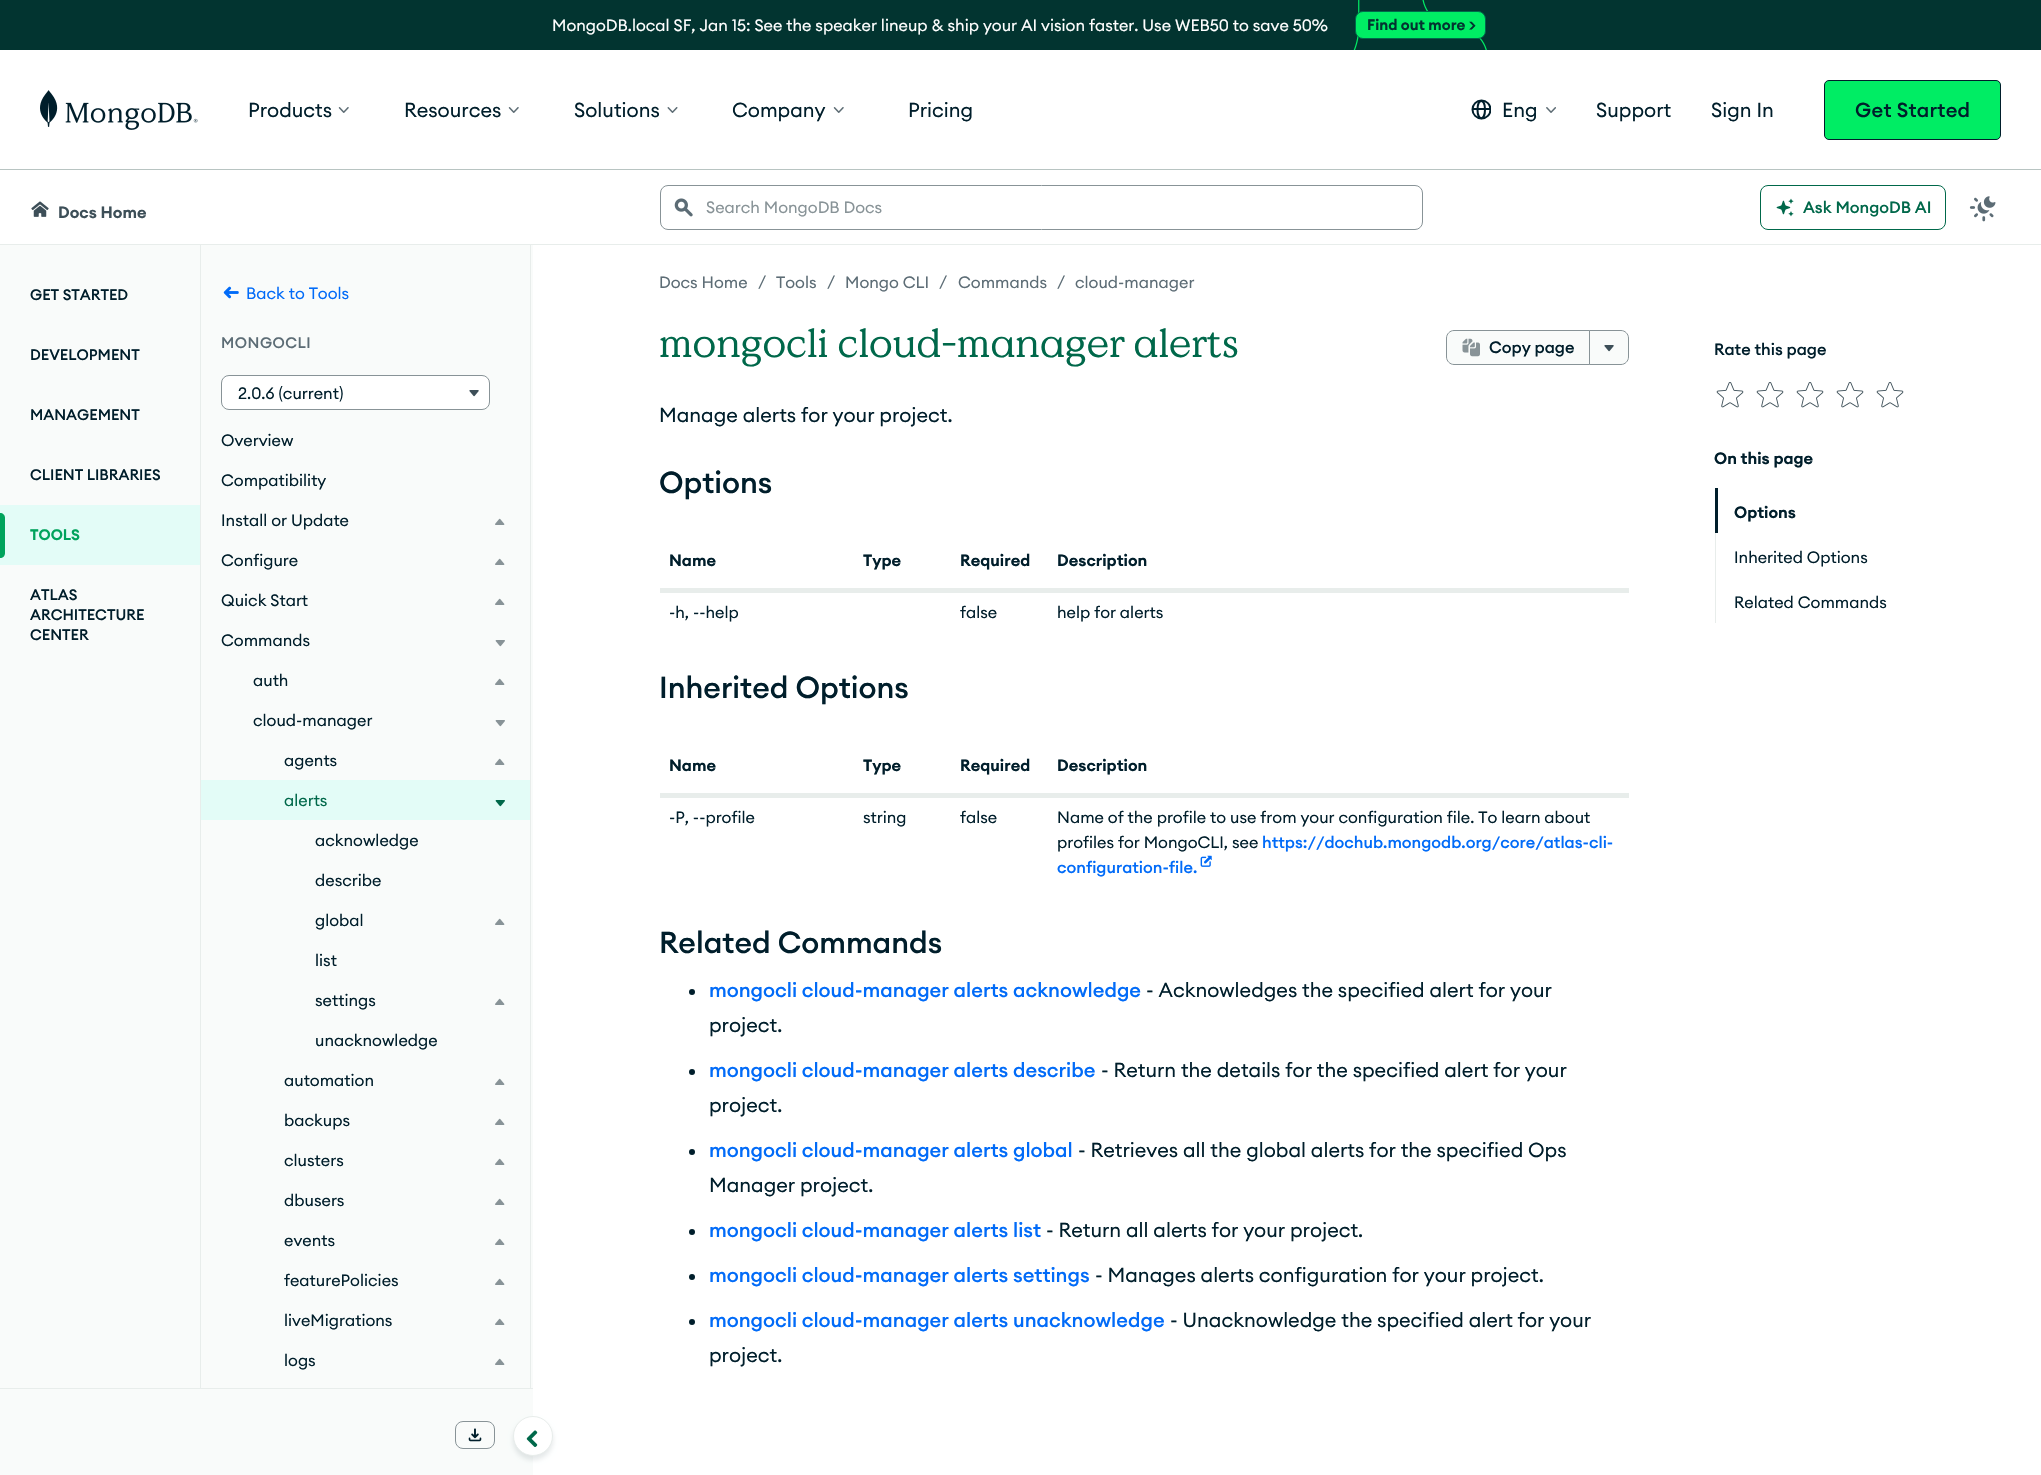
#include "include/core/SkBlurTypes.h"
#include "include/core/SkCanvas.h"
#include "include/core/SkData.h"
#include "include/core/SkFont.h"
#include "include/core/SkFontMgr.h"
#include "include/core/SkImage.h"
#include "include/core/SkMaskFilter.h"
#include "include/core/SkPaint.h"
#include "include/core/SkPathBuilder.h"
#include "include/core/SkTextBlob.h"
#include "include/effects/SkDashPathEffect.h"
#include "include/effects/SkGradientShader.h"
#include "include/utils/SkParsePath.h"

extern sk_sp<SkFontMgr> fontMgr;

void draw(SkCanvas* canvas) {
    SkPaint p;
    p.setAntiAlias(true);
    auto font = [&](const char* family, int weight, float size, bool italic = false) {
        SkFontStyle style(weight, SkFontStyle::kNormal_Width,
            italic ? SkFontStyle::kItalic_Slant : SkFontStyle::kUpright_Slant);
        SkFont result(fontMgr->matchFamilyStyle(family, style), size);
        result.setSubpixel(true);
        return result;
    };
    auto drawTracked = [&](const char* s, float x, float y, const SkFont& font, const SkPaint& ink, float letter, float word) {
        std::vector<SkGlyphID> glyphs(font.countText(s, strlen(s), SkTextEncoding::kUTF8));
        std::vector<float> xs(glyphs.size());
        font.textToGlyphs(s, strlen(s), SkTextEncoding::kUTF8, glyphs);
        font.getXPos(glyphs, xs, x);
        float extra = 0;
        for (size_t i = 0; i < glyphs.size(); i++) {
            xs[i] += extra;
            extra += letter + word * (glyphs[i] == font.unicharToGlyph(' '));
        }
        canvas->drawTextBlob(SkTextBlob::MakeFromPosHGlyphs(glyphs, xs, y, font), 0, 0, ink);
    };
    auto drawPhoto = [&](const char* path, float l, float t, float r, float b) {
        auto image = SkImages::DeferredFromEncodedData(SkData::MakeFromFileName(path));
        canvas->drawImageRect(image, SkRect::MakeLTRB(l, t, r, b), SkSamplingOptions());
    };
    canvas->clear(0xFFFFFFFF);
    p.setColor(0xFF023430);
    canvas->drawRect(SkRect::MakeLTRB(0, 0, 2041, 50), p);
    auto font1 = font("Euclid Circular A", 400, 16.25f);
    p.setColor(0xFFFFFFFF);
    canvas->drawString("MongoDB.local SF, Jan 15: See the speaker lineup & ship your AI vision faster. Use WEB50 to save 50%", 552, 31, font1, p);
    drawPhoto("media/1.png", 1353, 0, 1487, 50);
    p.setColor(0xFF00ED64);
    canvas->drawRoundRect(SkRect::MakeLTRB(1355.5f, 11.5f, 1485.5f, 38.5f), 7.5f, 7.5f, p);
    p.setStyle(SkPaint::kStroke_Style);
    p.setStrokeWidth(1);
    p.setColor(0xFF00684A);
    canvas->drawRoundRect(SkRect::MakeLTRB(1355.5f, 11.5f, 1485.5f, 38.5f), 7.5f, 7.5f, p);
    auto font2 = font("Euclid Circular A", 600, 15);
    p.setStyle(SkPaint::kFill_Style);
    p.setColor(0xFF023430);
    canvas->drawString("Find out more >", 1367, 30, font2, p);
    p.setColor(0xFFB8C4C2);
    canvas->drawRect(SkRect::MakeLTRB(0, 169, 2041, 170), p);
    drawPhoto("media/2.png", 40, 90, 198, 130);
    auto font3 = font("Euclid Circular A", 400, 20);
    p.setColor(0xFF001E2B);
    canvas->drawString("Products", 248, 117, font3, p);
    drawPhoto("media/3.png", 338, 107, 349, 113);
    canvas->drawString("Resources", 404, 117, font3, p);
    drawPhoto("media/3.png", 508, 107, 519, 113);
    canvas->drawString("Solutions", 574, 117, font3, p);
    drawPhoto("media/4.png", 667, 107, 678, 113);
    canvas->drawString("Company", 732, 117, font3, p);
    drawPhoto("media/3.png", 833, 107, 844, 113);
    canvas->drawString("Pricing", 908, 117, font3, p);
    canvas->save();
    canvas->clipRect(SkRect::MakeLTRB(1471, 99, 1491, 120));
    p.setStyle(SkPaint::kStroke_Style);
    p.setStrokeWidth(2);
    canvas->drawCircle(1481.5f, 109.5f, 9, p);
    canvas->restore();
    canvas->drawPath(SkPathBuilder().moveTo(1485, 109.5f).cubicTo(1485, 121, 1477.5f, 121, 1477.5f, 109.5f).cubicTo(1477.5f, 98, 1485, 98, 1485, 109.5f).close().detach(), p);
    p.setStyle(SkPaint::kFill_Style);
    canvas->drawRect(SkRect::MakeLTRB(1472, 108, 1491, 110), p);
    canvas->drawString("Eng", 1502, 117, font3, p);
    drawPhoto("media/5.png", 1546, 107, 1556, 113);
    canvas->drawString("Support", 1596, 117, font3, p);
    canvas->drawString("Sign In", 1711, 117, font3, p);
    p.setColor(0xFF00ED64);
    canvas->drawRoundRect(SkRect::MakeLTRB(1824.5f, 80.5f, 2000.5f, 139.5f), 4.5f, 4.5f, p);
    p.setStyle(SkPaint::kStroke_Style);
    p.setStrokeWidth(1);
    p.setColor(0xFF001E2B);
    canvas->drawRoundRect(SkRect::MakeLTRB(1824.5f, 80.5f, 2000.5f, 139.5f), 4.5f, 4.5f, p);
    auto font4 = font("Euclid Circular A", 500, 20);
    p.setStyle(SkPaint::kFill_Style);
    drawTracked("Get Started", 1855, 117, font4, p, 0.25f, 0);
    p.setColor(0xFFF9FBFA);
    canvas->drawRect(SkRect::MakeLTRB(0, 245, 533, 1475), p);
    drawPhoto("media/6.png", 31, 201, 49, 217);
    auto font5 = font("Euclid Circular A", 600, 16.25f);
    p.setColor(0xFF3D4F58);
    canvas->drawString("Docs Home", 58, 218, font5, p);
    p.setColor(0xFFE8EDEB);
    canvas->drawRect(SkRect::MakeLTRB(0, 1388, 533, 1389), p);
    canvas->drawRect(SkRect::MakeLTRB(200, 245, 201, 1388), p);
    auto font6 = font("Euclid Circular A", 500, 15);
    p.setColor(0xFF001E2B);
    {
        const struct { const char* s; float x, y; } items[] = {
            {"GET STARTED", 30, 300},
            {"DEVELOPMENT", 30, 360},
            {"MANAGEMENT", 30, 420},
            {"CLIENT LIBRARIES", 30, 480},
        };
        for (auto [s, x, y] : items) {
            canvas->drawString(s, x, y, font6, p);
        }
    }
    p.setColor(0xFFE3FCF7);
    canvas->drawRect(SkRect::MakeLTRB(0, 505, 200, 565), p);
    p.setColor(0xFF00A35C);
    canvas->drawPath(SkPathBuilder().moveTo(0, 513).cubicTo(3, 513, 5, 515, 5, 518).lineTo(5, 553).cubicTo(5, 556, 3, 558, 0, 558).close().detach(), p);
    canvas->drawString("TOOLS", 30, 540, font2, p);
    p.setColor(0xFF001E2B);
    {
        const struct { const char* s; float x, y; } items[] = {
            {"ATLAS", 30, 600},
            {"ARCHITECTURE", 30, 620},
            {"CENTER", 30, 640},
        };
        for (auto [s, x, y] : items) {
            canvas->drawString(s, x, y, font6, p);
        }
    }
    p.setColor(0xFFE8EDEB);
    canvas->drawRect(SkRect::MakeLTRB(530, 245, 531, 1388), p);
    drawPhoto("media/7.png", 223, 286, 239, 299);
    p.setColor(0xFF016BF8);
    canvas->drawString("Back to Tools", 246, 299, font1, p);
    p.setColor(0xFF5C6C75);
    drawTracked("MONGOCLI", 221, 348, font6, p, 0.5f, 0);
    p.setColor(0xFFFFFFFF);
    canvas->drawRoundRect(SkRect::MakeLTRB(221.5f, 375.5f, 489.5f, 409.5f), 7.5f, 7.5f, p);
    p.setStyle(SkPaint::kStroke_Style);
    p.setColor(0xFF889397);
    canvas->drawRoundRect(SkRect::MakeLTRB(221.5f, 375.5f, 489.5f, 409.5f), 7.5f, 7.5f, p);
    p.setStyle(SkPaint::kFill_Style);
    p.setColor(0xFF001E2B);
    canvas->drawString("2.0.6 (current)", 238, 399, font1, p);
    drawPhoto("media/8.png", 469, 390, 479, 397);
    {
        const struct { const char* s; float x, y; } items[] = {
            {"Overview", 221, 446},
            {"Compatibility", 221, 486},
            {"Install or Update", 221, 526},
        };
        for (auto [s, x, y] : items) {
            canvas->drawString(s, x, y, font1, p);
        }
    }
    drawPhoto("media/9.png", 495, 518, 505, 525);
    canvas->drawString("Configure", 221, 566, font1, p);
    drawPhoto("media/9.png", 495, 558, 505, 565);
    canvas->drawString("Quick Start", 221, 606, font1, p);
    drawPhoto("media/9.png", 495, 598, 505, 605);
    canvas->drawString("Commands", 221, 646, font1, p);
    drawPhoto("media/10.png", 495, 640, 505, 647);
    canvas->drawString("auth", 253, 686, font1, p);
    drawPhoto("media/9.png", 495, 678, 505, 685);
    canvas->drawString("cloud-manager", 253, 726, font1, p);
    drawPhoto("media/10.png", 495, 720, 505, 727);
    canvas->drawString("agents", 284, 766, font1, p);
    drawPhoto("media/9.png", 495, 758, 505, 765);
    p.setColor(0xFFE3FCF7);
    canvas->drawRect(SkRect::MakeLTRB(201, 780, 530, 820), p);
    p.setColor(0xFF00684A);
    canvas->drawString("alerts", 284, 806, font1, p);
    drawPhoto("media/11.png", 495, 800, 505, 807);
    p.setColor(0xFF001E2B);
    {
        const struct { const char* s; float x, y; } items[] = {
            {"acknowledge", 315, 846},
            {"describe", 315, 886},
            {"global", 315, 926},
        };
        for (auto [s, x, y] : items) {
            canvas->drawString(s, x, y, font1, p);
        }
    }
    drawPhoto("media/9.png", 495, 918, 505, 925);
    canvas->drawString("list", 315, 966, font1, p);
    canvas->drawString("settings", 315, 1006, font1, p);
    drawPhoto("media/9.png", 495, 998, 505, 1005);
    canvas->drawString("unacknowledge", 315, 1046, font1, p);
    canvas->drawString("automation", 284, 1086, font1, p);
    drawPhoto("media/9.png", 495, 1078, 505, 1085);
    canvas->drawString("backups", 284, 1126, font1, p);
    drawPhoto("media/9.png", 495, 1118, 505, 1125);
    canvas->drawString("clusters", 284, 1166, font1, p);
    drawPhoto("media/9.png", 495, 1158, 505, 1165);
    canvas->drawString("dbusers", 284, 1206, font1, p);
    drawPhoto("media/9.png", 495, 1198, 505, 1205);
    canvas->drawString("events", 284, 1246, font1, p);
    drawPhoto("media/9.png", 495, 1238, 505, 1245);
    canvas->drawString("featurePolicies", 284, 1286, font1, p);
    drawPhoto("media/9.png", 495, 1278, 505, 1285);
    canvas->drawString("liveMigrations", 284, 1326, font1, p);
    drawPhoto("media/9.png", 495, 1318, 505, 1325);
    canvas->drawString("logs", 284, 1366, font1, p);
    drawPhoto("media/9.png", 495, 1358, 505, 1365);
    p.setStyle(SkPaint::kStroke_Style);
    p.setColor(0xFF889397);
    canvas->drawRoundRect(SkRect::MakeLTRB(455.5f, 1421.5f, 494.5f, 1448.5f), 7.5f, 7.5f, p);
    drawPhoto("media/12.png", 468, 1428, 482, 1442);
    p.setStyle(SkPaint::kFill_Style);
    p.setColor(0x1A001E2B);
    p.setMaskFilter(SkMaskFilter::MakeBlur(kNormal_SkBlurStyle, 2.5f));
    canvas->drawRoundRect(SkRect::MakeLTRB(513, 1420, 553, 1460), 20, 20, p);
    p.setMaskFilter(nullptr);
    p.setColor(0xFFFFFFFF);
    canvas->drawCircle(533, 1436, 19.5f, p);
    p.setStyle(SkPaint::kStroke_Style);
    p.setColor(0xFFE8EDEB);
    canvas->drawCircle(533, 1436, 19.5f, p);
    drawPhoto("media/13.png", 526, 1430, 538, 1447);
    p.setStyle(SkPaint::kFill_Style);
    canvas->drawRect(SkRect::MakeLTRB(0, 244, 2041, 245), p);
    p.setStyle(SkPaint::kStroke_Style);
    p.setColor(0xFF889397);
    canvas->drawRoundRect(SkRect::MakeLTRB(660.5f, 185.5f, 1422.5f, 229.5f), 7.5f, 7.5f, p);
    drawPhoto("media/14.png", 674, 198, 693, 217);
    p.setStyle(SkPaint::kFill_Style);
    canvas->drawString("Search MongoDB Docs", 706, 213, font1, p);
    p.setStyle(SkPaint::kStroke_Style);
    p.setColor(0xFF00684A);
    canvas->drawRoundRect(SkRect::MakeLTRB(1760.5f, 185.5f, 1945.5f, 229.5f), 7.5f, 7.5f, p);
    drawPhoto("media/15.png", 1776, 198, 1794, 217);
    auto font7 = font("Euclid Circular A", 500, 16.25f);
    p.setStyle(SkPaint::kFill_Style);
    canvas->drawString("Ask MongoDB AI", 1803, 213, font7, p);
    drawPhoto("media/16.png", 1969, 196, 1996, 222);
    p.setColor(0xFF5C6C75);
    {
        const struct { const char* s; float x, y; } items[] = {
            {"Docs Home", 659, 288},
            {"/", 758, 287},
            {"Tools", 776, 288},
            {"/", 827, 287},
            {"Mongo CLI", 845, 288},
            {"/", 939, 287},
            {"Commands", 958, 288},
            {"/", 1057, 287},
            {"cloud-manager", 1075, 288},
        };
        for (auto [s, x, y] : items) {
            canvas->drawString(s, x, y, font1, p);
        }
    }
    auto font8 = font("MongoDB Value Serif", 400, 40);
    p.setColor(0xFF00684A);
    canvas->drawString("mongocli cloud-manager alerts", 659, 357, font8, p);
    p.setColor(0xFFF9FBFA);
    canvas->drawPath(SkPathBuilder().moveTo(1589.5f, 330.5f).lineTo(1621, 330.5f).cubicTo(1625, 330.5f, 1628.5f, 334, 1628.5f, 338).lineTo(1628.5f, 357).cubicTo(1628.5f, 361, 1625, 364.5f, 1621, 364.5f).lineTo(1589.5f, 364.5f).close().detach(), p);
    p.setStyle(SkPaint::kStroke_Style);
    p.setColor(0xFF889397);
    canvas->drawPath(SkPathBuilder().moveTo(1589.5f, 330.5f).lineTo(1621, 330.5f).cubicTo(1625, 330.5f, 1628.5f, 334, 1628.5f, 338).lineTo(1628.5f, 357).cubicTo(1628.5f, 361, 1625, 364.5f, 1621, 364.5f).lineTo(1589.5f, 364.5f).close().detach(), p);
    p.setStyle(SkPaint::kFill_Style);
    p.setColor(0xFFF9FBFA);
    canvas->drawPath(SkPathBuilder().moveTo(1454, 330.5f).lineTo(1589.5f, 330.5f).lineTo(1589.5f, 364.5f).lineTo(1454, 364.5f).cubicTo(1450, 364.5f, 1446.5f, 361, 1446.5f, 357).lineTo(1446.5f, 338).cubicTo(1446.5f, 334, 1450, 330.5f, 1454, 330.5f).close().detach(), p);
    p.setStyle(SkPaint::kStroke_Style);
    p.setColor(0xFF889397);
    canvas->drawPath(SkPathBuilder().moveTo(1454, 330.5f).lineTo(1589.5f, 330.5f).lineTo(1589.5f, 364.5f).lineTo(1454, 364.5f).cubicTo(1450, 364.5f, 1446.5f, 361, 1446.5f, 357).lineTo(1446.5f, 338).cubicTo(1446.5f, 334, 1450, 330.5f, 1454, 330.5f).close().detach(), p);
    drawPhoto("media/17.png", 1462, 338, 1480, 357);
    p.setStyle(SkPaint::kFill_Style);
    p.setColor(0xFF001E2B);
    canvas->drawString("Copy page", 1489, 353, font7, p);
    drawPhoto("media/18.png", 1604, 345, 1614, 352);
    canvas->drawString("Manage alerts for your project.", 659, 422, font3, p);
    auto font9 = font("Euclid Circular A", 500, 30);
    canvas->drawString("Options", 659, 493, font9, p);
    p.setColor(0xFFE8EDEB);
    canvas->drawPath(SkPathBuilder().moveTo(660, 588).lineTo(660, 593).lineTo(1629, 593).lineTo(1629, 538).lineTo(1629, 588).close().detach(), p);
    p.setColor(0xFF001E2B);
    {
        const struct { const char* s; float x, y; } items[] = {
            {"Name", 669, 566},
            {"Type", 863, 566},
            {"Required", 960, 566},
            {"Description", 1057, 566},
        };
        for (auto [s, x, y] : items) {
            canvas->drawString(s, x, y, font5, p);
        }
    }
    {
        const struct { const char* s; float x, y; } items[] = {
            {"-h, --help", 669, 618},
            {"false", 960, 618},
            {"help for alerts", 1057, 618},
        };
        for (auto [s, x, y] : items) {
            canvas->drawString(s, x, y, font1, p);
        }
    }
    canvas->drawString("Inherited Options", 659, 698, font9, p);
    p.setColor(0xFFE8EDEB);
    canvas->drawPath(SkPathBuilder().moveTo(660, 792).lineTo(660, 798).lineTo(1629, 798).lineTo(1629, 743).lineTo(1629, 792).close().detach(), p);
    p.setColor(0xFFFFFFFF);
    canvas->drawRect(SkRect::MakeLTRB(660, 792, 1629, 793), p);
    p.setColor(0xFF001E2B);
    {
        const struct { const char* s; float x, y; } items[] = {
            {"Name", 669, 771},
            {"Type", 863, 771},
            {"Required", 960, 771},
            {"Description", 1057, 771},
        };
        for (auto [s, x, y] : items) {
            canvas->drawString(s, x, y, font5, p);
        }
    }
    {
        const struct { const char* s; float x, y; } items[] = {
            {"-P, --profile", 669, 823},
            {"string", 863, 823},
            {"false", 960, 823},
            {"Name of the profile to use from your configuration file. To learn about", 1057, 823},
            {"profiles for MongoCLI, see", 1057, 848},
        };
        for (auto [s, x, y] : items) {
            canvas->drawString(s, x, y, font1, p);
        }
    }
    p.setColor(0xFF016BF8);
    canvas->drawString("https://dochub.mongodb.org/core/atlas-cli-", 1262, 848, font7, p);
    canvas->drawString("configuration-file.", 1057, 873, font7, p);
    drawPhoto("media/19.png", 1200, 855, 1212, 867);
    p.setColor(0xFF001E2B);
    canvas->drawString("Related Commands", 659, 953, font9, p);
    canvas->drawCircle(692, 992, 3, p);
    p.setColor(0xFF016BF8);
    canvas->drawString("mongocli cloud-manager alerts acknowledge", 709, 997, font4, p);
    p.setColor(0xFF001E2B);
    canvas->drawString("- Acknowledges the specified alert for your", 1146, 997, font3, p);
    canvas->drawString("project.", 709, 1032, font3, p);
    canvas->drawCircle(692, 1072, 3, p);
    p.setColor(0xFF016BF8);
    canvas->drawString("mongocli cloud-manager alerts describe", 709, 1077, font4, p);
    p.setColor(0xFF001E2B);
    canvas->drawString("- Return the details for the specified alert for your", 1101, 1077, font3, p);
    canvas->drawString("project.", 709, 1112, font3, p);
    canvas->drawCircle(692, 1152, 3, p);
    p.setColor(0xFF016BF8);
    canvas->drawString("mongocli cloud-manager alerts global", 709, 1157, font4, p);
    p.setColor(0xFF001E2B);
    canvas->drawString("- Retrieves all the global alerts for the specified Ops", 1078, 1157, font3, p);
    canvas->drawString("Manager project.", 709, 1192, font3, p);
    canvas->drawCircle(692, 1232, 3, p);
    p.setColor(0xFF016BF8);
    canvas->drawString("mongocli cloud-manager alerts list", 709, 1237, font4, p);
    p.setColor(0xFF001E2B);
    canvas->drawString("- Return all alerts for your project.", 1046, 1237, font3, p);
    canvas->drawCircle(692, 1277, 3, p);
    p.setColor(0xFF016BF8);
    canvas->drawString("mongocli cloud-manager alerts settings", 709, 1282, font4, p);
    p.setColor(0xFF001E2B);
    canvas->drawString("- Manages alerts configuration for your project.", 1095, 1282, font3, p);
    canvas->drawCircle(692, 1322, 3, p);
    p.setColor(0xFF016BF8);
    canvas->drawString("mongocli cloud-manager alerts unacknowledge", 709, 1327, font4, p);
    p.setColor(0xFF001E2B);
    canvas->drawString("- Unacknowledge the specified alert for your", 1170, 1327, font3, p);
    canvas->drawString("project.", 709, 1362, font3, p);
    canvas->drawString("Rate this page", 1714, 355, font7, p);
    drawPhoto("media/20.png", 1716, 382, 1744, 408);
    drawPhoto("media/20.png", 1756, 382, 1784, 408);
    drawPhoto("media/20.png", 1796, 382, 1824, 408);
    drawPhoto("media/20.png", 1836, 382, 1864, 408);
    drawPhoto("media/20.png", 1876, 382, 1904, 408);
    canvas->drawString("On this page", 1714, 464, font5, p);
    canvas->drawRect(SkRect::MakeLTRB(1715, 488, 1718, 533), p);
    canvas->drawString("Options", 1734, 518, font5, p);
    p.setColor(0xFFE8EDEB);
    canvas->drawRect(SkRect::MakeLTRB(1715, 533, 1716, 623), p);
    p.setColor(0xFF001E2B);
    canvas->drawString("Inherited Options", 1734, 563, font1, p);
    canvas->drawString("Related Commands", 1734, 608, font1, p);
}
